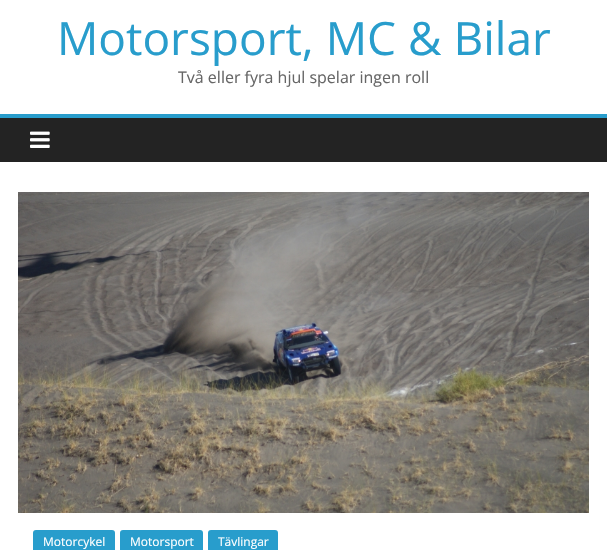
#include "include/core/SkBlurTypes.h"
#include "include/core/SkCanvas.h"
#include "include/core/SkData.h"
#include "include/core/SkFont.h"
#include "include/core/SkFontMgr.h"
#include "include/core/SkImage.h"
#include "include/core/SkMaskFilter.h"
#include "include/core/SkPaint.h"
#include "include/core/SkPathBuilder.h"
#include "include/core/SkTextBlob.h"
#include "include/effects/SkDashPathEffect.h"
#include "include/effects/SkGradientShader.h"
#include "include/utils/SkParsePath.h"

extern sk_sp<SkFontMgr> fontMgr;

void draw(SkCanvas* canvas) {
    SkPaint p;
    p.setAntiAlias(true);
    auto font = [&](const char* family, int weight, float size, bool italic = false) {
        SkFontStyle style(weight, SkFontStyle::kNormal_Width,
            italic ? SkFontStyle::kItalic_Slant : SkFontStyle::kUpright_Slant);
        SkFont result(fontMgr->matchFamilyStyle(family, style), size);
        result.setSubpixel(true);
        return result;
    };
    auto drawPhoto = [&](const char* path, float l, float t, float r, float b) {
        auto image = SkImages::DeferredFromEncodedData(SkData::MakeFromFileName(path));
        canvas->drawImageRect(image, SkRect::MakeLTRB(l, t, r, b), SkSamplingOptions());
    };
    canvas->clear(0xFFFFFFFF);
    auto font1 = font("Open Sans", 400, 46);
    p.setColor(0xFF289DCC);
    canvas->drawString("Motorsport, MC & Bilar", 57, 55, font1, p);
    auto font2 = font("Open Sans", 400, 16);
    p.setColor(0xFF666666);
    canvas->drawString("Två eller fyra hjul spelar ingen roll", 178, 83, font2, p);
    p.setColor(0xFF232323);
    canvas->drawRect(SkRect::MakeLTRB(0, 118, 607, 162), p);
    p.setColor(0xFF289DCC);
    canvas->drawRect(SkRect::MakeLTRB(0, 114, 607, 118), p);
    drawPhoto("media/1.png", 30, 131, 50, 148);
    drawPhoto("media/2.png", 18, 192, 589, 513);
    canvas->drawRoundRect(SkRect::MakeLTRB(33, 530, 115, 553), 3, 3, p);
    auto font3 = font("Open Sans", 400, 12);
    p.setColor(0xFFFFFFFF);
    canvas->drawString("Motorcykel", 43, 546, font3, p);
    p.setColor(0xFF289DCC);
    canvas->drawRoundRect(SkRect::MakeLTRB(120, 530, 203, 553), 3, 3, p);
    p.setColor(0xFFFFFFFF);
    canvas->drawString("Motorsport", 130, 546, font3, p);
    p.setColor(0xFF289DCC);
    canvas->drawRoundRect(SkRect::MakeLTRB(208, 530, 278, 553), 3, 3, p);
    p.setColor(0xFFFFFFFF);
    canvas->drawString("Tävlingar", 218, 546, font3, p);
}
